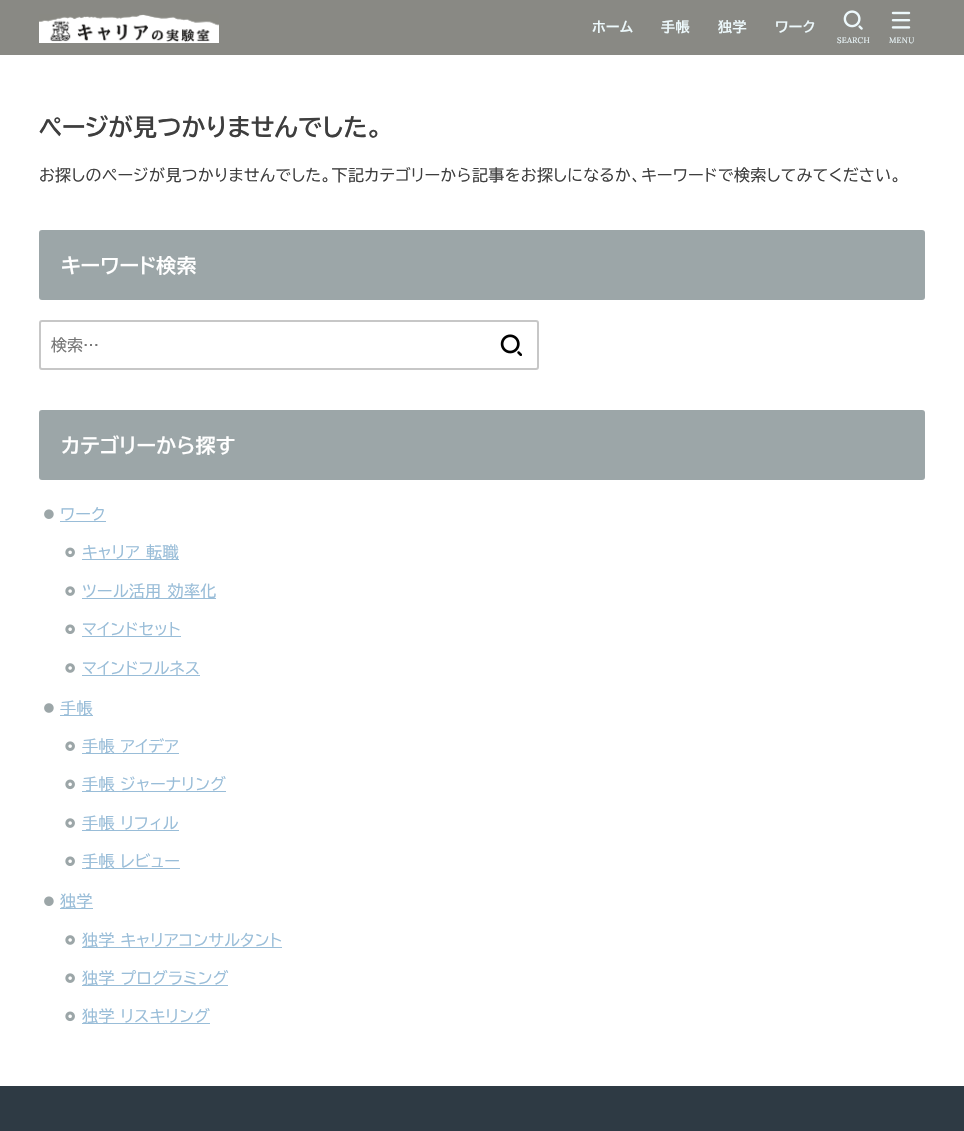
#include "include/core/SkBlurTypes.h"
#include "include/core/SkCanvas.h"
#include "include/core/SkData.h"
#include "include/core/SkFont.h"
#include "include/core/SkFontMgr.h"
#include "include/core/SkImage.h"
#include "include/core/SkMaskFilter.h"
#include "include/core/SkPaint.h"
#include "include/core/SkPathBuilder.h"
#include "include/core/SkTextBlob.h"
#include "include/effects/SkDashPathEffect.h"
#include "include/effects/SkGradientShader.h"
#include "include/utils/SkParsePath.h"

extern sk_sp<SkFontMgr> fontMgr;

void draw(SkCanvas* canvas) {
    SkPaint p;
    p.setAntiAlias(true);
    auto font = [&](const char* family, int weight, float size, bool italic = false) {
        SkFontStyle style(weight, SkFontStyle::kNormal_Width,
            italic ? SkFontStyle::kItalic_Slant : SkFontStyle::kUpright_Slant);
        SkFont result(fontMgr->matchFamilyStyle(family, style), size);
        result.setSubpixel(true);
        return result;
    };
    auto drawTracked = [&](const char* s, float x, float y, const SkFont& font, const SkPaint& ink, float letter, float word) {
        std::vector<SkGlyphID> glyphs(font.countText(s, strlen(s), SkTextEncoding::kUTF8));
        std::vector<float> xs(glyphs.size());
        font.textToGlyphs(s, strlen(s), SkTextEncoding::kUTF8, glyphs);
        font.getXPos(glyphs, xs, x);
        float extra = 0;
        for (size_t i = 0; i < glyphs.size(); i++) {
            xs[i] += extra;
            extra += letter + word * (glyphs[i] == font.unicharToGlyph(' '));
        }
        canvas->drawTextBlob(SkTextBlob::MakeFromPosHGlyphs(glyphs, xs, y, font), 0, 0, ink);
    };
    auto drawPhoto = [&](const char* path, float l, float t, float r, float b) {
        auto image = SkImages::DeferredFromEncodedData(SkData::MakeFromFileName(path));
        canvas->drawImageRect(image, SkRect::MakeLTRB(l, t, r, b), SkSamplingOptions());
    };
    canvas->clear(0xFFFFFFFF);
    p.setColor(0xFF898984);
    canvas->drawRect(SkRect::MakeLTRB(0, 0, 964, 55), p);
    drawPhoto("media/1.png", 39, 14, 219, 43);
    auto font1 = font("BIZ UDPGothic", 700, 14);
    p.setColor(0xFFEDF9FC);
    {
        const struct { const char* s; float x, y; } items[] = {
            {"ホーム", 592, 32},
            {"手帳", 661, 32},
            {"独学", 718, 32},
            {"ワーク", 775, 32},
        };
        for (auto [s, x, y] : items) {
            drawTracked(s, x, y, font1, p, 0.4f, 0);
        }
    }
    drawPhoto("media/2.png", 843, 10, 863, 30);
    auto font2 = font("Lora", 400, 8);
    drawTracked("SEARCH", 837, 43, font2, p, 0.25f, 0);
    drawPhoto("media/3.png", 891, 11, 911, 29);
    drawTracked("MENU", 889, 43, font2, p, 0.25f, 0);
    auto font3 = font("BIZ UDPGothic", 700, 24);
    p.setColor(0xFF3E3E3E);
    drawTracked("ページが見つかりませんでした。", 39, 136, font3, p, 0.25f, 0);
    auto font4 = font("BIZ UDPGothic", 400, 16);
    drawTracked("お探しのページが見つかりませんでした。下記カテゴリーから記事をお探しになるか、キーワードで検索してみてください。", 39, 181, font4, p, 0.4f, 0);
    p.setColor(0xFF9CA6A8);
    canvas->drawRoundRect(SkRect::MakeLTRB(39, 230, 925, 300), 3, 3, p);
    auto font5 = font("BIZ UDPGothic", 700, 20);
    p.setColor(0xFFFFFFFF);
    drawTracked("キーワード検索", 61, 273, font5, p, 0.25f, 0);
    p.setStyle(SkPaint::kStroke_Style);
    p.setStrokeWidth(2);
    p.setColor(0xFFC7C7C7);
    canvas->drawRoundRect(SkRect::MakeLTRB(40, 321, 538, 369), 2, 2, p);
    p.setStyle(SkPaint::kFill_Style);
    p.setColor(0xFF757575);
    canvas->drawString("検索…", 51, 351, font4, p);
    drawPhoto("media/4.png", 500, 334, 522, 356);
    p.setColor(0xFF9CA6A8);
    canvas->drawRoundRect(SkRect::MakeLTRB(39, 410, 925, 480), 3, 3, p);
    p.setColor(0xFFFFFFFF);
    drawTracked("カテゴリーから探す", 61, 453, font5, p, 0.25f, 0);
    drawPhoto("media/5.png", 44, 509, 54, 519);
    p.setColor(0xFF99BDD8);
    drawTracked("ワーク", 60, 520, font4, p, 0.4f, 0);
    canvas->drawRect(SkRect::MakeLTRB(60, 521, 106, 522), p);
    drawPhoto("media/6.png", 65, 547, 75, 558);
    canvas->drawRect(SkRect::MakeLTRB(82, 559, 179, 560), p);
    drawTracked("キャリア 転職", 82, 558, font4, p, 0.4f, 0);
    drawPhoto("media/7.png", 65, 586, 75, 596);
    canvas->drawRect(SkRect::MakeLTRB(82, 598, 216, 599), p);
    drawTracked("ツール活用 効率化", 82, 597, font4, p, 0.4f, 0);
    drawPhoto("media/8.png", 65, 624, 75, 634);
    drawTracked("マインドセット", 82, 635, font4, p, 0.4f, 0);
    canvas->drawRect(SkRect::MakeLTRB(82, 636, 181, 637), p);
    drawPhoto("media/9.png", 65, 663, 75, 673);
    canvas->drawRect(SkRect::MakeLTRB(82, 675, 200, 676), p);
    drawTracked("マインドフルネス", 82, 674, font4, p, 0.4f, 0);
    drawPhoto("media/10.png", 44, 703, 54, 713);
    canvas->drawRect(SkRect::MakeLTRB(60, 715, 93, 716), p);
    drawTracked("手帳", 60, 714, font4, p, 0.4f, 0);
    drawPhoto("media/11.png", 65, 741, 75, 751);
    canvas->drawRect(SkRect::MakeLTRB(82, 753, 179, 754), p);
    drawTracked("手帳 アイデア", 82, 752, font4, p, 0.4f, 0);
    drawPhoto("media/12.png", 65, 779, 75, 790);
    canvas->drawRect(SkRect::MakeLTRB(82, 791, 226, 792), p);
    drawTracked("手帳 ジャーナリング", 82, 790, font4, p, 0.4f, 0);
    drawPhoto("media/13.png", 65, 818, 75, 828);
    canvas->drawRect(SkRect::MakeLTRB(82, 830, 179, 831), p);
    drawTracked("手帳 リフィル", 82, 829, font4, p, 0.4f, 0);
    drawPhoto("media/14.png", 65, 856, 75, 866);
    canvas->drawRect(SkRect::MakeLTRB(82, 868, 180, 869), p);
    drawTracked("手帳 レビュー", 82, 867, font4, p, 0.4f, 0);
    drawPhoto("media/15.png", 44, 896, 54, 906);
    canvas->drawRect(SkRect::MakeLTRB(60, 908, 93, 909), p);
    drawTracked("独学", 60, 907, font4, p, 0.4f, 0);
    drawPhoto("media/16.png", 65, 935, 75, 945);
    canvas->drawRect(SkRect::MakeLTRB(82, 947, 282, 948), p);
    drawTracked("独学 キャリアコンサルタント", 82, 946, font4, p, 0.4f, 0);
    drawPhoto("media/17.png", 65, 973, 75, 983);
    canvas->drawRect(SkRect::MakeLTRB(82, 985, 228, 986), p);
    drawTracked("独学 プログラミング", 82, 984, font4, p, 0.4f, 0);
    drawPhoto("media/18.png", 65, 1011, 75, 1022);
    canvas->drawRect(SkRect::MakeLTRB(82, 1023, 210, 1024), p);
    drawTracked("独学 リスキリング", 82, 1022, font4, p, 0.4f, 0);
    p.setColor(0xFF2E3A44);
    canvas->drawRect(SkRect::MakeLTRB(0, 1086, 964, 1131), p);
}
